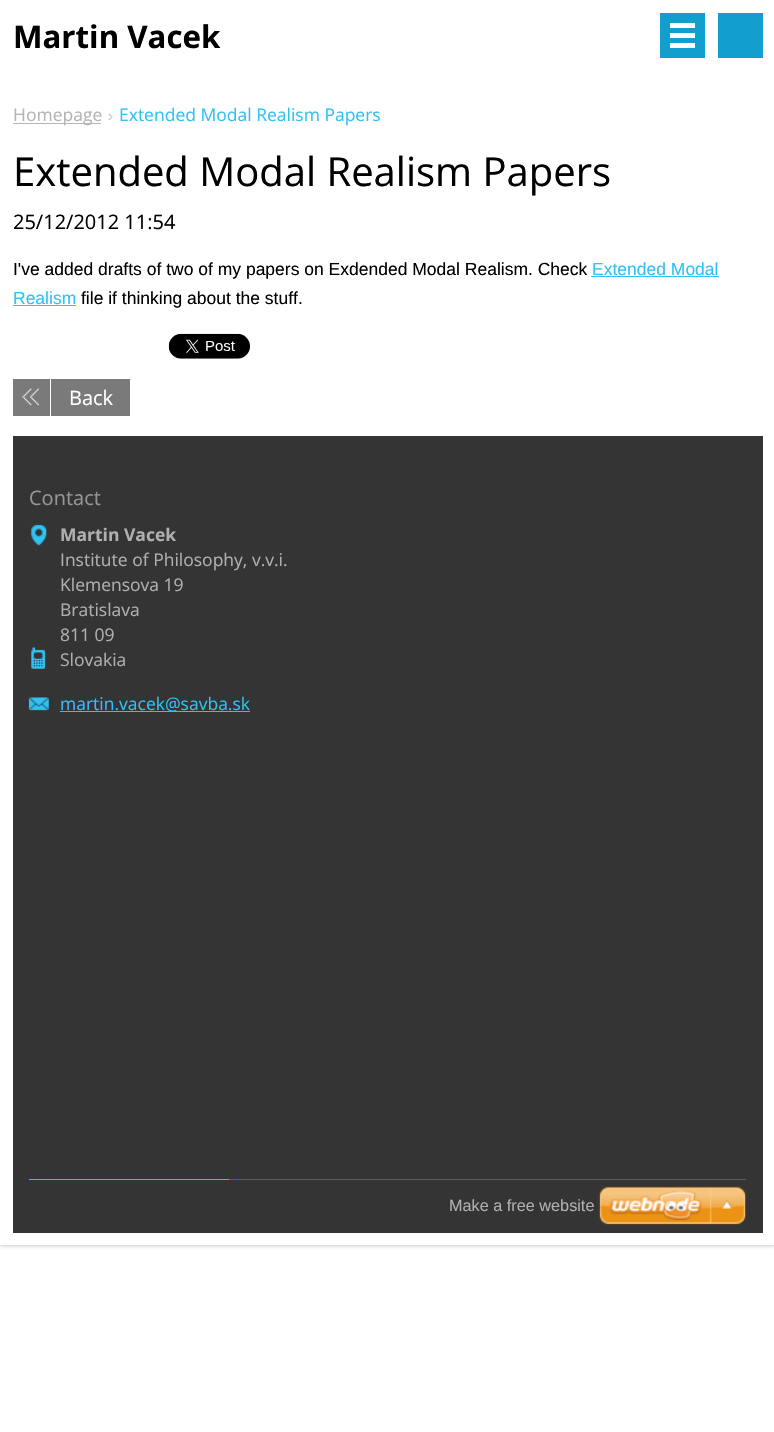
#include "include/core/SkBlurTypes.h"
#include "include/core/SkCanvas.h"
#include "include/core/SkData.h"
#include "include/core/SkFont.h"
#include "include/core/SkFontMgr.h"
#include "include/core/SkImage.h"
#include "include/core/SkMaskFilter.h"
#include "include/core/SkPaint.h"
#include "include/core/SkPathBuilder.h"
#include "include/core/SkTextBlob.h"
#include "include/effects/SkDashPathEffect.h"
#include "include/effects/SkGradientShader.h"
#include "include/utils/SkParsePath.h"

extern sk_sp<SkFontMgr> fontMgr;

void draw(SkCanvas* canvas) {
    SkPaint p;
    p.setAntiAlias(true);
    auto font = [&](const char* family, int weight, float size, bool italic = false) {
        SkFontStyle style(weight, SkFontStyle::kNormal_Width,
            italic ? SkFontStyle::kItalic_Slant : SkFontStyle::kUpright_Slant);
        SkFont result(fontMgr->matchFamilyStyle(family, style), size);
        result.setSubpixel(true);
        return result;
    };
    auto drawPhoto = [&](const char* path, float l, float t, float r, float b) {
        auto image = SkImages::DeferredFromEncodedData(SkData::MakeFromFileName(path));
        canvas->drawImageRect(image, SkRect::MakeLTRB(l, t, r, b), SkSamplingOptions());
    };
    canvas->clear(0xFFFFFFFF);
    canvas->save();
    canvas->clipRect(SkRect::MakeLTRB(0, 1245, 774, 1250));
    p.setColor(0xBF989898);
    p.setMaskFilter(SkMaskFilter::MakeBlur(kNormal_SkBlurStyle, 2.5f));
    canvas->drawRect(SkRect::MakeLTRB(0, 0, 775, 1245), p);
    p.setMaskFilter(nullptr);
    canvas->restore();
    auto font1 = font("Open Sans", 700, 31.25f);
    p.setColor(0xFF000000);
    canvas->drawString("Martin Vacek", 13, 48, font1, p);
    {
        const struct { float l, t, r, b; SkColor color; } items[] = {
            {660, 13, 705, 58, 0xFF129FCD},
            {670, 23, 695, 28, 0xFFFFFFFF},
            {670, 43, 695, 48, 0xFFFFFFFF},
            {670, 33, 695, 38, 0xFFFFFFFF},
            {718, 13, 763, 58, 0xFF129FCD},
            {13, 123, 101, 124, 0xFFB5B5B5},
        };
        for (auto [l, t, r, b, color] : items) {
            p.setColor(color);
            canvas->drawRect(SkRect::MakeLTRB(l, t, r, b), p);
        }
    }
    auto font2 = font("Open Sans", 400, 17.5f);
    canvas->drawString("Homepage", 13, 121, font2, p);
    drawPhoto("media/1.png", 108, 113, 113, 120);
    p.setColor(0xFF2FC2F2);
    canvas->drawString("Extended Modal Realism Papers", 119, 121, font2, p);
    auto font3 = font("Open Sans", 400, 40);
    p.setColor(0xFF000000);
    canvas->drawString("Extended Modal Realism Papers", 13, 186, font3, p);
    auto font4 = font("Open Sans", 400, 20);
    canvas->drawString("25/12/2012 11:54", 13, 229, font4, p);
    auto font5 = font("Liberation Sans", 400, 17.5f);
    canvas->drawString("I've added drafts of two of my papers on Exdended Modal Realism. Check", 13, 275, font5, p);
    p.setColor(0xFF2FC2F2);
    canvas->drawString("Extended Modal", 592, 275, font5, p);
    canvas->drawRect(SkRect::MakeLTRB(591, 276, 719, 277), p);
    canvas->drawString("Realism", 13, 304, font5, p);
    canvas->drawRect(SkRect::MakeLTRB(13, 305, 76, 306), p);
    p.setColor(0xFF000000);
    canvas->drawString("file if thinking about the stuff.", 81, 304, font5, p);
    drawPhoto("media/2.png", 168, 333, 250, 359);
    p.setColor(0xFF7A7A7A);
    canvas->drawRect(SkRect::MakeLTRB(13, 379, 130, 416), p);
    drawPhoto("media/3.png", 22, 388, 39, 406);
    p.setColor(0xFFFFFFFF);
    canvas->drawRect(SkRect::MakeLTRB(50, 379, 51, 416), p);
    canvas->drawString("Back", 69, 405, font4, p);
    p.setColor(0xFF343434);
    canvas->drawRect(SkRect::MakeLTRB(13, 436, 763, 1233), p);
    p.setColor(0xFF959595);
    canvas->drawString("Contact", 29, 505, font4, p);
    drawPhoto("media/4.png", 31, 524, 47, 669);
    auto font6 = font("Open Sans", 700, 17.5f);
    p.setColor(0xFFB0AFAF);
    canvas->drawString("Martin Vacek", 60, 541, font6, p);
    {
        const struct { const char* s; float x, y; } items[] = {
            {"Institute of Philosophy, v.v.i.", 60, 566},
            {"Klemensova 19", 60, 591},
            {"Bratislava", 60, 616},
            {"811 09", 60, 641},
            {"Slovakia", 60, 666},
        };
        for (auto [s, x, y] : items) {
            canvas->drawString(s, x, y, font2, p);
        }
    }
    drawPhoto("media/5.png", 28, 697, 49, 711);
    p.setColor(0xFF2FC2F2);
    canvas->drawRect(SkRect::MakeLTRB(60, 711, 250, 712), p);
    canvas->drawString("martin.vacek@savba.sk", 60, 710, font2, p);
    p.setColor(0xFF5F5F5F);
    canvas->drawRect(SkRect::MakeLTRB(229, 1179, 746, 1180), p);
    p.setColor(0xFF2FC2F2);
    canvas->drawRect(SkRect::MakeLTRB(29, 1179, 229, 1180), p);
    auto font7 = font("Liberation Sans", 400, 16.25f);
    p.setColor(0xFFB0AFAF);
    canvas->drawString("Make a free website", 449, 1211, font7, p);
    drawPhoto("media/6.png", 598, 1186, 747, 1225);
}
